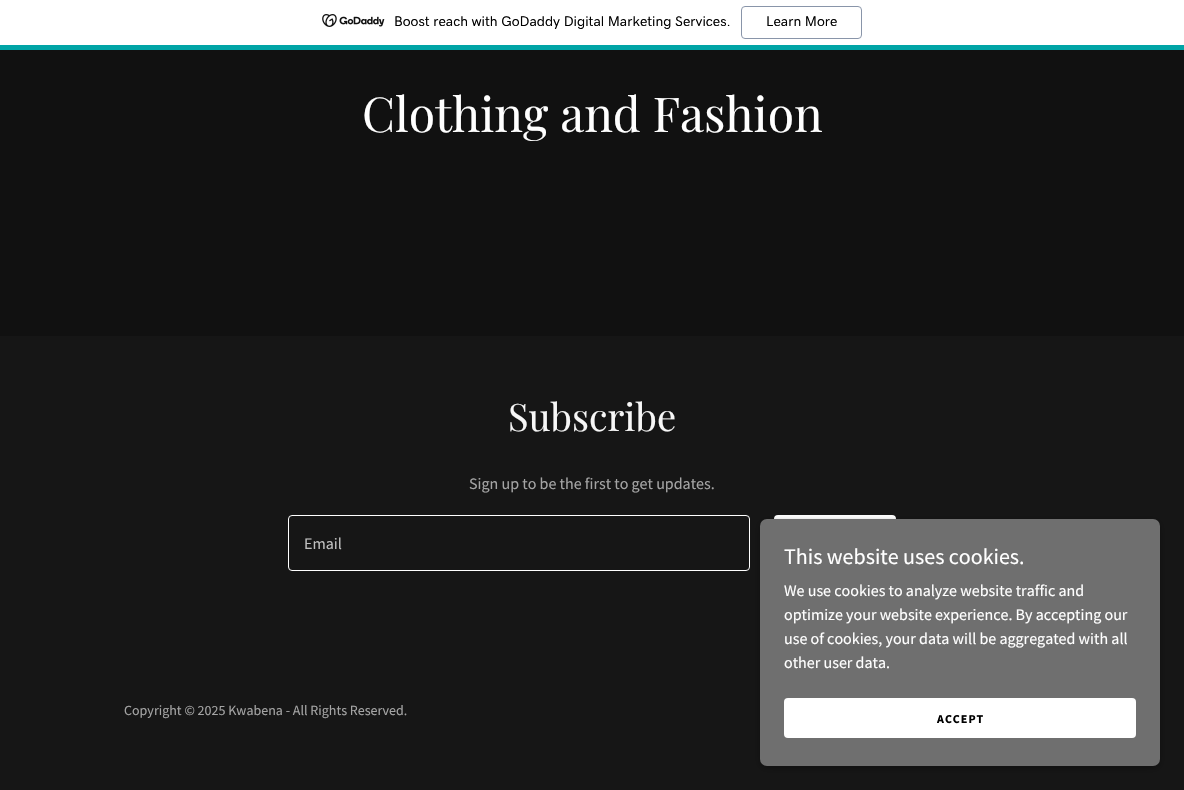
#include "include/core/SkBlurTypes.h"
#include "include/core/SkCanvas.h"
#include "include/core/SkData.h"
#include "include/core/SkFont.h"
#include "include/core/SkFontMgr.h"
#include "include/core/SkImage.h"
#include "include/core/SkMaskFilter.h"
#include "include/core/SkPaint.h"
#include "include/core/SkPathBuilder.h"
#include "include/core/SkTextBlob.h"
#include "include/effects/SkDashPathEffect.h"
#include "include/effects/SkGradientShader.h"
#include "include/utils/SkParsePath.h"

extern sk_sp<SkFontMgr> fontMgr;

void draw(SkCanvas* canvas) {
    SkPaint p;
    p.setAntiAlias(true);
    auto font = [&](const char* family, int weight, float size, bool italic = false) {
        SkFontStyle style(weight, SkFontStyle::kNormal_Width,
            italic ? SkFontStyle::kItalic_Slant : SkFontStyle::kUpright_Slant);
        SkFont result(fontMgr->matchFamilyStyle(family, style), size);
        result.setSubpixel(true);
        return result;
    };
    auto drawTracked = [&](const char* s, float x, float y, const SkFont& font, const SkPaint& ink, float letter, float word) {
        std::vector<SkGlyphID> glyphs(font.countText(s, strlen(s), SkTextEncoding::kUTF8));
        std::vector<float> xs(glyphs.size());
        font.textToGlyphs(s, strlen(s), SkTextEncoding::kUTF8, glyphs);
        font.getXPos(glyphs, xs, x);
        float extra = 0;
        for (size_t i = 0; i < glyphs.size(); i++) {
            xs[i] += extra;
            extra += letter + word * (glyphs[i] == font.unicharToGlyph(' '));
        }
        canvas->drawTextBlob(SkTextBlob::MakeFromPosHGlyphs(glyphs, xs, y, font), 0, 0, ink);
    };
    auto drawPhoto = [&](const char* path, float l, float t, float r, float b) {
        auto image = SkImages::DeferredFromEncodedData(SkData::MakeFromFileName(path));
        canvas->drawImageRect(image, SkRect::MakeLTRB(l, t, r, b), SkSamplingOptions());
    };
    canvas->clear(0xFF161616);
    p.setColor(0xFFFFFFFF);
    canvas->drawRect(SkRect::MakeLTRB(0, 0, 1184, 45), p);
    p.setColor(0xFF00A4A6);
    canvas->drawRect(SkRect::MakeLTRB(0, 45, 1184, 50), p);
    drawPhoto("media/1.png", 322, 14, 385, 27);
    auto font1 = font("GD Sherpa", 500, 14);
    p.setColor(0xFF000000);
    canvas->drawString("Boost reach with GoDaddy Digital Marketing Services.", 394, 26, font1, p);
    p.setStyle(SkPaint::kStroke_Style);
    p.setStrokeWidth(1);
    p.setColor(0xFF8995A9);
    canvas->drawRoundRect(SkRect::MakeLTRB(741.5f, 6.5f, 861.5f, 38.5f), 3.5f, 3.5f, p);
    p.setStyle(SkPaint::kFill_Style);
    p.setColor(0xFF000000);
    canvas->drawString("Learn More", 766, 26, font1, p);
    p.setColor(0xFF111111);
    canvas->drawRect(SkRect::MakeLTRB(0, 50, 1184, 336), p);
    auto font2 = font("Playfair Display", 400, 48);
    p.setColor(0xFFFFFFFF);
    canvas->drawString("Clothing and Fashion", 362, 132, font2, p);
    auto font3 = font("Playfair Display", 400, 38);
    p.setColor(0xFFF7F7F7);
    canvas->drawString("Subscribe", 508, 431, font3, p);
    auto font4 = font("Source Sans Pro", 400, 16);
    p.setColor(0xFFA4A4A4);
    canvas->drawString("Sign up to be the first to get updates.", 469, 489, font4, p);
    p.setStyle(SkPaint::kStroke_Style);
    p.setColor(0xFFFFFFFF);
    canvas->drawRoundRect(SkRect::MakeLTRB(288.5f, 515.5f, 749.5f, 570.5f), 3.5f, 3.5f, p);
    p.setStyle(SkPaint::kFill_Style);
    p.setColor(0xFFBFBFBF);
    canvas->drawString("Email", 304, 549, font4, p);
    p.setColor(0xFFFFFFFF);
    canvas->drawRoundRect(SkRect::MakeLTRB(774, 515, 896, 571), 4, 4, p);
    auto font5 = font("Source Sans Pro", 400, 14);
    p.setColor(0xFFA4A4A4);
    canvas->drawString("Copyright © 2025 Kwabena - All Rights Reserved.", 124, 715, font5, p);
    p.setColor(0x4D000000);
    p.setMaskFilter(SkMaskFilter::MakeBlur(kNormal_SkBlurStyle, 3));
    canvas->drawRoundRect(SkRect::MakeLTRB(760, 521, 1160, 768), 7, 7, p);
    p.setMaskFilter(nullptr);
    p.setColor(0xFF6F6F6F);
    canvas->drawRoundRect(SkRect::MakeLTRB(760, 519, 1160, 766), 7, 7, p);
    auto font6 = font("Source Sans Pro", 400, 22);
    p.setColor(0xFFFFFFFF);
    canvas->drawString("This website uses cookies.", 784, 564, font6, p);
    {
        const struct { const char* s; float x, y; } items[] = {
            {"We use cookies to analyze website traffic and", 784, 596},
            {"optimize your website experience. By accepting our", 784, 620},
            {"use of cookies, your data will be aggregated with all", 784, 644},
            {"other user data.", 784, 668},
        };
        for (auto [s, x, y] : items) {
            canvas->drawString(s, x, y, font4, p);
        }
    }
    canvas->drawRoundRect(SkRect::MakeLTRB(784, 698, 1136, 738), 4, 4, p);
    auto font7 = font("Source Sans Pro", 700, 12);
    p.setColor(0xFF000000);
    drawTracked("ACCEPT", 937, 723, font7, p, 1, 0);
}
